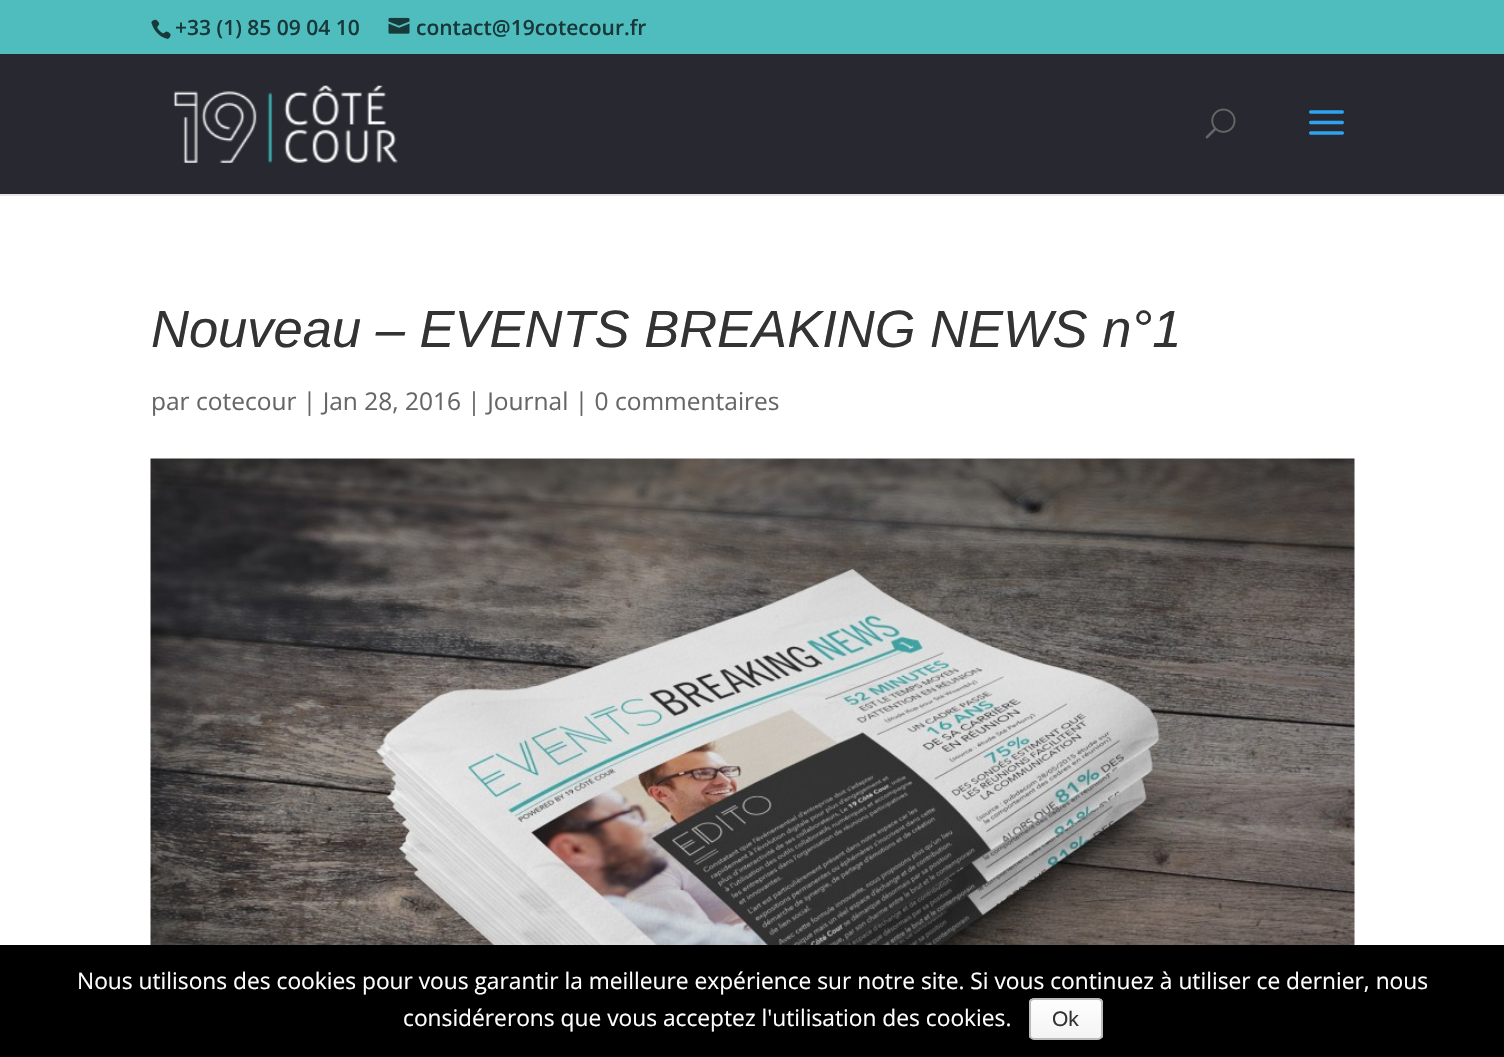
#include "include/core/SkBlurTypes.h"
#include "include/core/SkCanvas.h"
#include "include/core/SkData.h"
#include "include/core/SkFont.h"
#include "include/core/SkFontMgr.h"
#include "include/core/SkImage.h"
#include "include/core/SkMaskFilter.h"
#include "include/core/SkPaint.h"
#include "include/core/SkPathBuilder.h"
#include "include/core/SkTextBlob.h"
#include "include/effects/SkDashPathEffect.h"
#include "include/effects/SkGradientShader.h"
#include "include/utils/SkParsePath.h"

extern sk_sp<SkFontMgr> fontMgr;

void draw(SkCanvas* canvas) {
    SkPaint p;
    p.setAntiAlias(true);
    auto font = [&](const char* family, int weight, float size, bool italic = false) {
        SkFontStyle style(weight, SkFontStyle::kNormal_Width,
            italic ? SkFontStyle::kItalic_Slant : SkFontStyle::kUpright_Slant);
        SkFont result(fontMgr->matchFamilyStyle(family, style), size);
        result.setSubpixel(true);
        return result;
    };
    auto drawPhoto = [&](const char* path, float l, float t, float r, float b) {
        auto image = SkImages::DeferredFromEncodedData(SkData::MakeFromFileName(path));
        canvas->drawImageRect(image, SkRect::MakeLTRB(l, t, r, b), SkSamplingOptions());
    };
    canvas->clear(0xFFFFFFFF);
    p.setColor(0xFF4FBCBD);
    canvas->drawRect(SkRect::MakeLTRB(0, 0, 1504, 54), p);
    drawPhoto("media/1.png", 151, 19, 171, 39);
    auto font1 = font("Open Sans", 600, 21);
    p.setColor(0xFF183839);
    canvas->drawString("+33 (1) 85 09 04 10", 175, 35, font1, p);
    drawPhoto("media/2.png", 388, 17, 410, 34);
    canvas->drawString("contact@19cotecour.fr", 416, 35, font1, p);
    p.setColor(0xFFE6E6E6);
    canvas->drawRect(SkRect::MakeLTRB(0, 194, 1504, 196), p);
    p.setColor(0xFF272830);
    canvas->drawRect(SkRect::MakeLTRB(0, 54, 1504, 194), p);
    drawPhoto("media/3.png", 173, 85, 398, 163);
    drawPhoto("media/4.png", 1205, 108, 1236, 139);
    drawPhoto("media/5.png", 1309, 110, 1344, 135);
    auto font2 = font("Liberation Sans", 400, 52.5f, true);
    p.setColor(0xFF333333);
    canvas->drawString("Nouveau – EVENTS BREAKING NEWS n°1", 151, 347, font2, p);
    auto font3 = font("Open Sans", 400, 24.5f);
    p.setColor(0xFF666666);
    canvas->drawString("par cotecour | Jan 28, 2016 | Journal | 0 commentaires", 151, 410, font3, p);
    drawPhoto("media/6.png", 150, 458, 1355, 945);
    p.setColor(0xFF000000);
    canvas->drawRect(SkRect::MakeLTRB(0, 945, 1504, 1057), p);
    auto font4 = font("Open Sans", 400, 22.75f);
    p.setColor(0xFFFFFFFF);
    canvas->drawString("Nous utilisons des cookies pour vous garantir la meilleure expérience sur notre site. Si vous continuez à utiliser ce dernier, nous", 77, 989, font4, p);
    canvas->drawString("considérerons que vous acceptez l'utilisation des cookies.", 403, 1026, font4, p);
    canvas->save();
    canvas->clipPath(SkPathBuilder().moveTo(1034, 998).lineTo(1098, 998).cubicTo(1101, 998, 1103, 1000, 1103, 1003).lineTo(1103, 1035).cubicTo(1103, 1038, 1101, 1040, 1098, 1040).lineTo(1034, 1040).cubicTo(1031, 1040, 1029, 1038, 1029, 1035).lineTo(1029, 1003).cubicTo(1029, 1000, 1031, 998, 1034, 998).close().detach(), true);
    {
        const SkColor colors[] = {0xFFFEFEFE, 0xFFF4F4F4};
        const float stops[] = {0, 1};
        const SkPoint ends[] = {{1066, 999}, {1066, 1038}};
        p.setShader(SkGradientShader::MakeLinear(ends, colors, stops, 2, SkTileMode::kClamp));
        p.setAlpha(255);
    }
    canvas->drawRect(SkRect::MakeLTRB(1029, 999, 1103, 1038), p);
    canvas->restore();
    p.setStyle(SkPaint::kStroke_Style);
    p.setStrokeWidth(2);
    p.setShader(nullptr);
    p.setColor(0xFFBBBBBB);
    canvas->drawRoundRect(SkRect::MakeLTRB(1030, 999, 1102, 1039), 4, 4, p);
    auto font5 = font("Liberation Sans", 400, 21);
    p.setStyle(SkPaint::kFill_Style);
    p.setColor(0xFF333333);
    canvas->drawString("Ok", 1052, 1026, font5, p);
}
